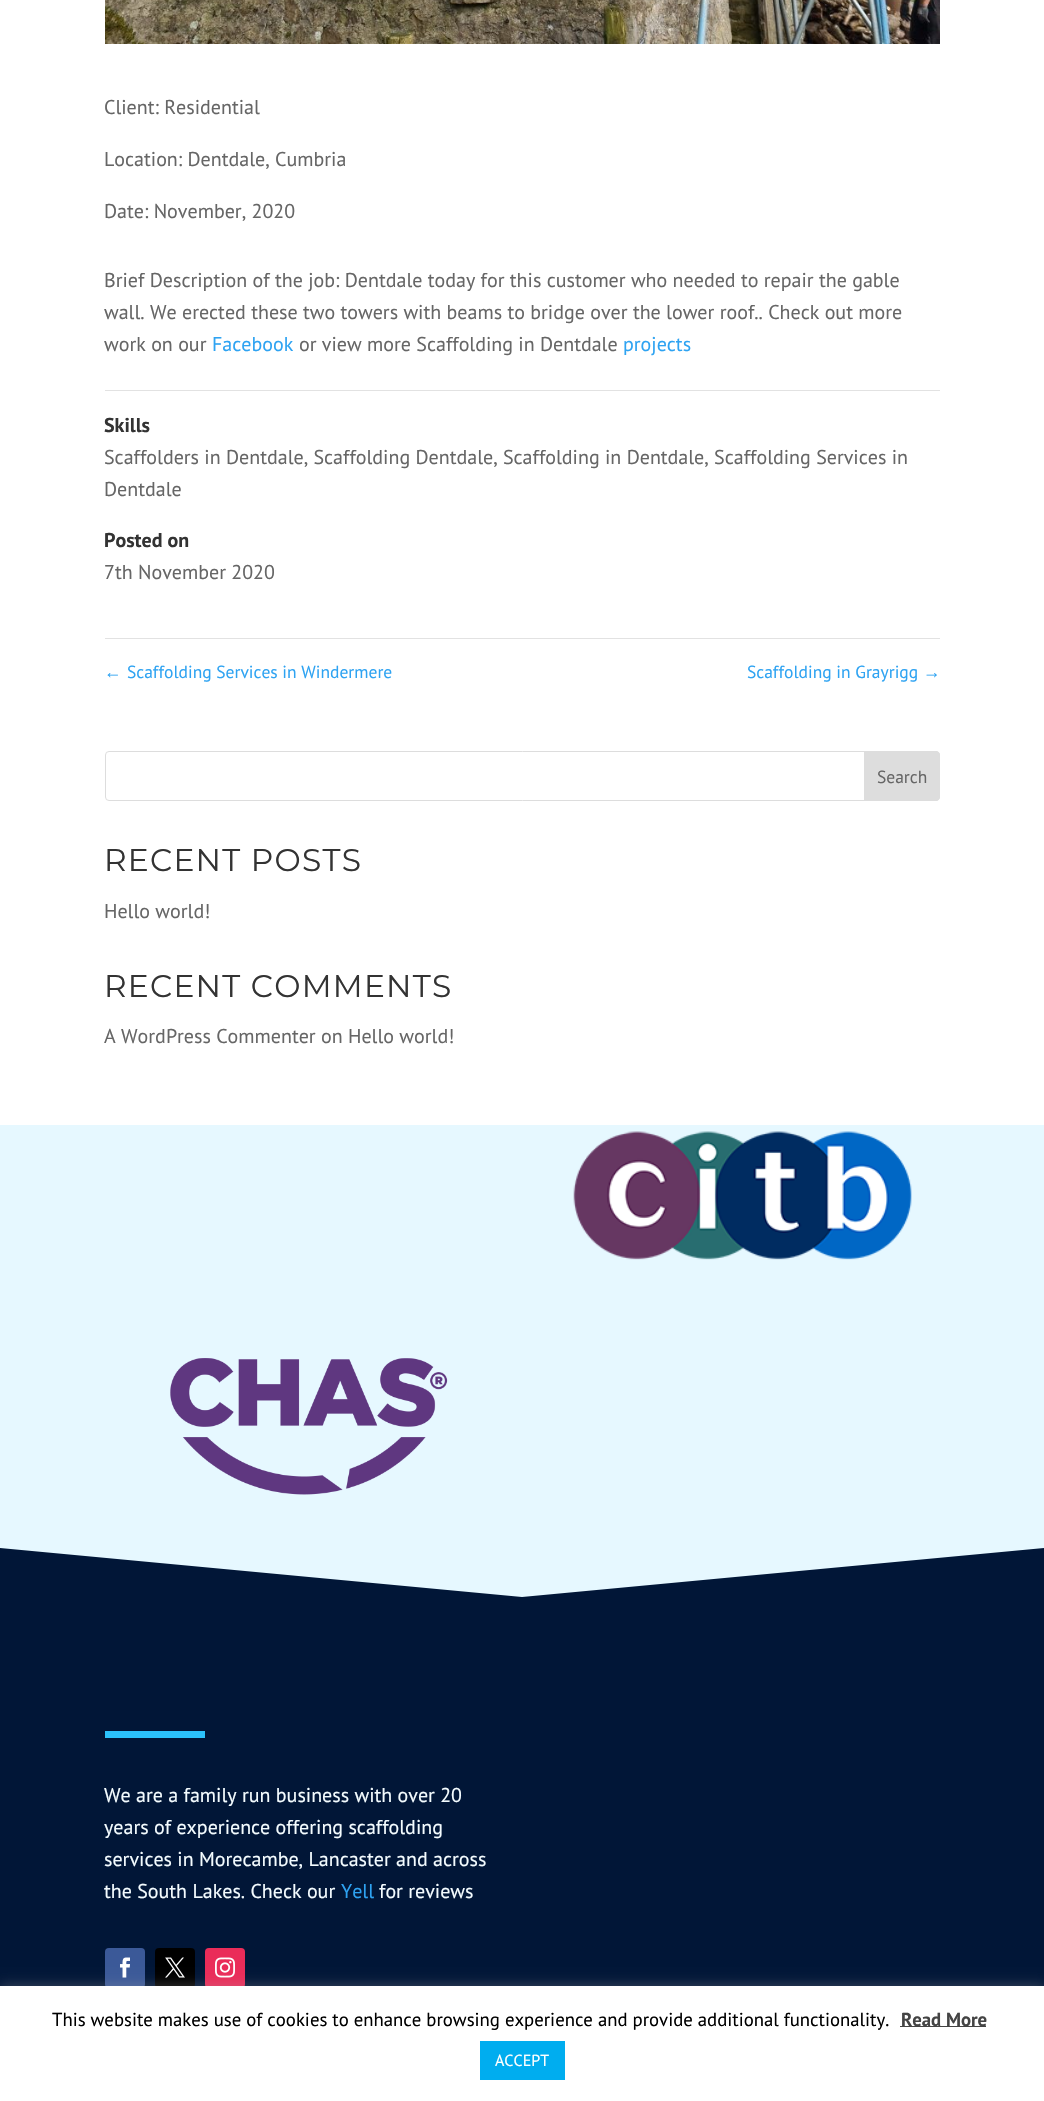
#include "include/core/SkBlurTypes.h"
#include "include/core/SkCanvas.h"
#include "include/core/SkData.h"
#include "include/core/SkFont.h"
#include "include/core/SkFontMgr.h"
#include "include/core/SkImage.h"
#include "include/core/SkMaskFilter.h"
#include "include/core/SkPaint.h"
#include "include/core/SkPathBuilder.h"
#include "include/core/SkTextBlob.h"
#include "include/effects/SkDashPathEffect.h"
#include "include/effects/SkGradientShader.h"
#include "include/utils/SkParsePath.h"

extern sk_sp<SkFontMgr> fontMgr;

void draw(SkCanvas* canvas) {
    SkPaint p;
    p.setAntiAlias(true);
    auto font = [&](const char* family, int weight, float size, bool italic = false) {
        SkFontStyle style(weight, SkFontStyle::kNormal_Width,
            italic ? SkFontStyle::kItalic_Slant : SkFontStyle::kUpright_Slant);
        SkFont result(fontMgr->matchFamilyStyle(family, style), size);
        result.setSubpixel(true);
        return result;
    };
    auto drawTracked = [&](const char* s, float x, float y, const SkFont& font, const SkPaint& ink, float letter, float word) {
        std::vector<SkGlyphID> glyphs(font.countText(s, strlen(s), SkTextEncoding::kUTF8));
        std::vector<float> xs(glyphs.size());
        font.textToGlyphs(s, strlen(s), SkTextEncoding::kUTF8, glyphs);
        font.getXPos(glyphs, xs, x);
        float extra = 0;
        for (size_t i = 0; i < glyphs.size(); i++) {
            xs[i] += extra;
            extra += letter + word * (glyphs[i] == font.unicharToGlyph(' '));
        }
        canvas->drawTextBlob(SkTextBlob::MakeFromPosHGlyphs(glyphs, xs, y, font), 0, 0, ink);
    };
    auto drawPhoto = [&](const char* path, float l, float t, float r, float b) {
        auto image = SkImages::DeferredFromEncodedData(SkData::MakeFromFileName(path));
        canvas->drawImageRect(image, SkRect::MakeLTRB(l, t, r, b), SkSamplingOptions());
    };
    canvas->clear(0xFFFFFFFF);
    drawPhoto("media/1.png", 105, 0, 940, 44);
    auto font1 = font("PT Sans", 400, 20);
    p.setColor(0xFF666666);
    {
        const struct { const char* s; float x, y; } items[] = {
            {"Client: Residential", 104, 114},
            {"Location: Dentdale, Cumbria", 104, 166},
            {"Date: November, 2020", 104, 218},
            {"Brief Description of the job: Dentdale today for this customer who needed to repair the gable", 104, 287},
            {"wall. We erected these two towers with beams to bridge over the lower roof.. Check out more", 104, 319},
            {"work on our", 104, 351},
        };
        for (auto [s, x, y] : items) {
            canvas->drawString(s, x, y, font1, p);
        }
    }
    p.setColor(0xFF2EA3F2);
    canvas->drawString("Facebook", 212, 351, font1, p);
    p.setColor(0xFF666666);
    canvas->drawString("or view more Scaffolding in Dentdale", 299, 351, font1, p);
    p.setColor(0xFF2EA3F2);
    canvas->drawString("projects", 623, 351, font1, p);
    p.setColor(0xFFE2E2E2);
    canvas->drawRect(SkRect::MakeLTRB(105, 390, 940, 391), p);
    canvas->drawRect(SkRect::MakeLTRB(105, 638, 940, 639), p);
    auto font2 = font("PT Sans", 700, 20);
    p.setColor(0xFF333333);
    canvas->drawString("Skills", 104, 432, font2, p);
    p.setColor(0xFF666666);
    canvas->drawString("Scaffolders in Dentdale, Scaffolding Dentdale, Scaffolding in Dentdale, Scaffolding Services in", 104, 464, font1, p);
    canvas->drawString("Dentdale", 104, 496, font1, p);
    p.setColor(0xFF333333);
    canvas->drawString("Posted on", 104, 547, font2, p);
    p.setColor(0xFF666666);
    canvas->drawString("7th November 2020", 104, 579, font1, p);
    auto font3 = font("Liberation Sans", 400, 17.5f);
    p.setColor(0xFF2EA3F2);
    canvas->drawString("←", 104, 678, font3, p);
    auto font4 = font("PT Sans", 400, 17.5f);
    canvas->drawString("Scaffolding Services in Windermere", 127, 678, font4, p);
    canvas->drawString("Scaffolding in Grayrigg", 747, 678, font4, p);
    canvas->drawString("→", 923, 678, font3, p);
    p.setStyle(SkPaint::kStroke_Style);
    p.setStrokeWidth(1);
    p.setColor(0xFFDDDDDD);
    canvas->drawRoundRect(SkRect::MakeLTRB(105.5f, 751.5f, 939.5f, 800.5f), 3.5f, 3.5f, p);
    p.setStyle(SkPaint::kFill_Style);
    canvas->drawPath(SkPathBuilder().moveTo(864.5f, 751.5f).lineTo(936, 751.5f).cubicTo(938, 751.5f, 939.5f, 753, 939.5f, 755).lineTo(939.5f, 797).cubicTo(939.5f, 799, 938, 800.5f, 936, 800.5f).lineTo(864.5f, 800.5f).close().detach(), p);
    p.setStyle(SkPaint::kStroke_Style);
    canvas->drawPath(SkPathBuilder().moveTo(864.5f, 751.5f).lineTo(936, 751.5f).cubicTo(938, 751.5f, 939.5f, 753, 939.5f, 755).lineTo(939.5f, 797).cubicTo(939.5f, 799, 938, 800.5f, 936, 800.5f).lineTo(864.5f, 800.5f).close().detach(), p);
    p.setStyle(SkPaint::kFill_Style);
    p.setColor(0xFF666666);
    canvas->drawString("Search", 877, 783, font4, p);
    auto font5 = font("Montserrat", 100, 31.25f);
    p.setColor(0xFF333333);
    drawTracked("RECENT POSTS", 104, 871, font5, p, 1.25f, 0);
    p.setColor(0xFF666666);
    canvas->drawString("Hello world!", 104, 918, font1, p);
    p.setColor(0xFF333333);
    drawTracked("RECENT COMMENTS", 104, 997, font5, p, 1.25f, 0);
    p.setColor(0xFF666666);
    canvas->drawString("A WordPress Commenter on Hello world!", 104, 1043, font1, p);
    p.setColor(0xFFE6F8FF);
    canvas->drawRect(SkRect::MakeLTRB(0, 1125, 1044, 1597), p);
    drawPhoto("media/2.png", 573, 1131, 912, 1260);
    drawPhoto("media/3.png", 170, 1358, 448, 1495);
    p.setColor(0xFF011637);
    canvas->drawPath(SkPathBuilder().moveTo(522, 1597).lineTo(0, 1548).lineTo(0, 1598).lineTo(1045, 1598).lineTo(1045, 1548).close().detach(), p);
    canvas->drawRect(SkRect::MakeLTRB(0, 1598, 1044, 1986), p);
    p.setColor(0xFF2BC2FC);
    canvas->drawRect(SkRect::MakeLTRB(105, 1731, 205, 1738), p);
    p.setColor(0xFFF4FCFF);
    {
        const struct { const char* s; float x, y; } items[] = {
            {"We are a family run business with over 20", 104, 1802},
            {"years of experience offering scaffolding", 104, 1834},
            {"services in Morecambe, Lancaster and across", 104, 1866},
            {"the South Lakes. Check our", 104, 1898},
        };
        for (auto [s, x, y] : items) {
            canvas->drawString(s, x, y, font1, p);
        }
    }
    p.setColor(0xFF2EA3F2);
    canvas->drawString("Yell", 341, 1898, font1, p);
    p.setColor(0xFFF4FCFF);
    canvas->drawString("for reviews", 379, 1898, font1, p);
    p.setColor(0xFF3B5998);
    canvas->drawRoundRect(SkRect::MakeLTRB(105, 1948, 145, 1988), 4, 4, p);
    drawPhoto("media/4.png", 120, 1957, 130, 1978);
    p.setColor(0xFF000000);
    canvas->drawRoundRect(SkRect::MakeLTRB(155, 1948, 195, 1988), 4, 4, p);
    drawPhoto("media/5.png", 165, 1957, 185, 1978);
    p.setColor(0xFFEA2C59);
    canvas->drawRoundRect(SkRect::MakeLTRB(205, 1948, 245, 1988), 4, 4, p);
    drawPhoto("media/6.png", 215, 1957, 235, 1978);
    p.setColor(0x4DACABAB);
    p.setMaskFilter(SkMaskFilter::MakeBlur(kNormal_SkBlurStyle, 6));
    canvas->drawRect(SkRect::MakeLTRB(0, 1985, 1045, 2100), p);
    p.setMaskFilter(nullptr);
    p.setColor(0xFFFFFFFF);
    canvas->drawRect(SkRect::MakeLTRB(0, 1986, 1044, 2101), p);
    auto font6 = font("PT Sans", 400, 18.75f);
    p.setColor(0xFF000000);
    canvas->drawString("This website makes use of cookies to enhance browsing experience and provide additional functionality.", 52, 2026, font6, p);
    p.setColor(0xFF444444);
    canvas->drawRect(SkRect::MakeLTRB(900, 2026, 986, 2027), p);
    auto font7 = font("PT Sans", 700, 18.75f);
    canvas->drawString("Read More", 901, 2026, font7, p);
    p.setColor(0xFF00ADEF);
    canvas->drawRect(SkRect::MakeLTRB(480, 2041, 565, 2080), p);
    auto font8 = font("PT Sans", 400, 16);
    p.setColor(0xFFFFFFFF);
    canvas->drawString("ACCEPT", 495, 2066, font8, p);
}
